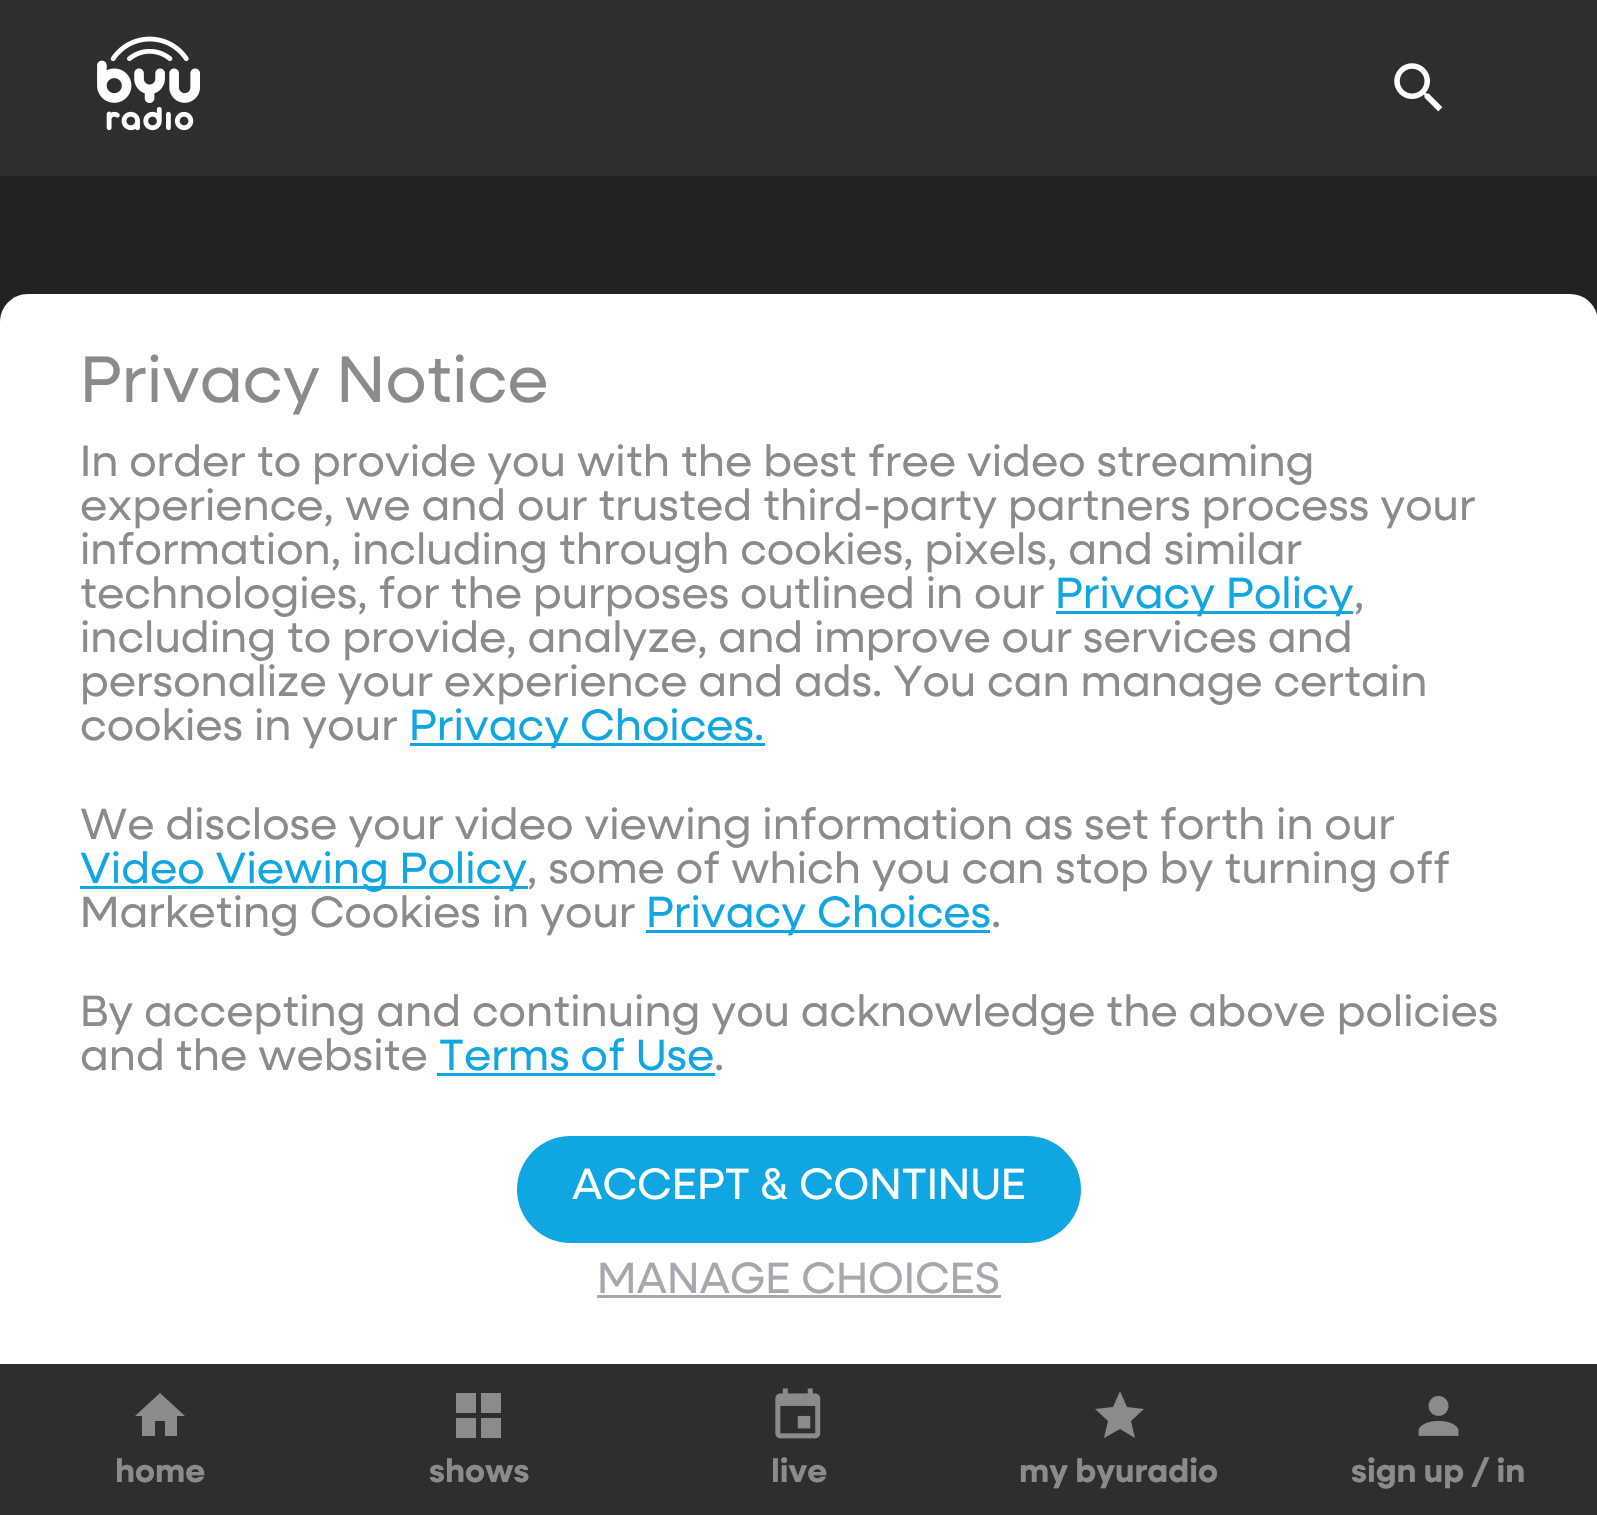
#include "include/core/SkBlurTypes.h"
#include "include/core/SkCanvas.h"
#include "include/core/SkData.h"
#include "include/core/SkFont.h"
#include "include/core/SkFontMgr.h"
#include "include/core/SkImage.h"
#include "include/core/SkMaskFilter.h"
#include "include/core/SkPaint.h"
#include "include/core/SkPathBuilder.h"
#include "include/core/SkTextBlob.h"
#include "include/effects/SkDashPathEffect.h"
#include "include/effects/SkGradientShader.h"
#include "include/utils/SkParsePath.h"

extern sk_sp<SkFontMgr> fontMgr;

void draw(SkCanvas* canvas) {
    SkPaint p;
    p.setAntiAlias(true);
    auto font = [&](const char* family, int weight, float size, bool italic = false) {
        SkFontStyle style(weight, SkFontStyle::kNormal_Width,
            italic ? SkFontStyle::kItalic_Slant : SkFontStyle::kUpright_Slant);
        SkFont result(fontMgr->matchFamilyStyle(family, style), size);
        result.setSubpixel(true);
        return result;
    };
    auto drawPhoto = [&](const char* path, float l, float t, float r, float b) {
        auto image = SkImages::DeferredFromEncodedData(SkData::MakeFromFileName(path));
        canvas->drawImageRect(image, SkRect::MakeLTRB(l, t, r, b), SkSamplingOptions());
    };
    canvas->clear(0xFF222222);
    p.setColor(0xFF2E2E2E);
    canvas->drawRect(SkRect::MakeLTRB(0, 0, 1597, 176), p);
    drawPhoto("media/1.png", 97, 36, 200, 131);
    drawPhoto("media/2.png", 1394, 63, 1443, 112);
    p.setColor(0xFFFFFFFF);
    canvas->drawPath(SkPathBuilder().moveTo(28, 294).lineTo(1570, 294).cubicTo(1585.5f, 294, 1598, 306.5f, 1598, 322).lineTo(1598, 1364).lineTo(0, 1364).lineTo(0, 322).cubicTo(0, 306.5f, 12.5f, 294, 28, 294).close().detach(), p);
    auto font1 = font("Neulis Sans", 400, 66);
    p.setColor(0xFF898B8D);
    canvas->drawString("Privacy Notice", 80, 402, font1, p);
    auto font2 = font("Neulis Sans", 400, 44);
    {
        const struct { const char* s; float x, y; } items[] = {
            {"In order to provide you with the best free video streaming", 80, 476},
            {"experience, we and our trusted third-party partners process your", 80, 520},
            {"information, including through cookies, pixels, and similar", 80, 564},
            {"technologies, for the purposes outlined in our", 80, 608},
        };
        for (auto [s, x, y] : items) {
            canvas->drawString(s, x, y, font2, p);
        }
    }
    p.setColor(0xFF0FA6E2);
    canvas->drawRect(SkRect::MakeLTRB(1056, 611, 1353, 614), p);
    canvas->drawString("Privacy Policy", 1055, 608, font2, p);
    p.setColor(0xFF898B8D);
    {
        const struct { const char* s; float x, y; } items[] = {
            {",", 1354, 608},
            {"including to provide, analyze, and improve our services and", 80, 652},
            {"personalize your experience and ads. You can manage certain", 80, 696},
            {"cookies in your", 80, 740},
        };
        for (auto [s, x, y] : items) {
            canvas->drawString(s, x, y, font2, p);
        }
    }
    p.setColor(0xFF0FA6E2);
    canvas->drawRect(SkRect::MakeLTRB(410, 743, 765, 746), p);
    canvas->drawString("Privacy Choices.", 409, 740, font2, p);
    p.setColor(0xFF898B8D);
    canvas->drawString("We disclose your video viewing information as set forth in our", 80, 839, font2, p);
    p.setColor(0xFF0FA6E2);
    canvas->drawRect(SkRect::MakeLTRB(80, 886, 528, 889), p);
    canvas->drawString("Video Viewing Policy", 80, 883, font2, p);
    p.setColor(0xFF898B8D);
    canvas->drawString(", some of which you can stop by turning off", 527, 883, font2, p);
    canvas->drawString("Marketing Cookies in your", 80, 927, font2, p);
    p.setColor(0xFF0FA6E2);
    canvas->drawRect(SkRect::MakeLTRB(646, 930, 990, 933), p);
    canvas->drawString("Privacy Choices", 646, 927, font2, p);
    p.setColor(0xFF898B8D);
    {
        const struct { const char* s; float x, y; } items[] = {
            {".", 991, 927},
            {"By accepting and continuing you acknowledge the above policies", 80, 1026},
            {"and the website", 80, 1070},
        };
        for (auto [s, x, y] : items) {
            canvas->drawString(s, x, y, font2, p);
        }
    }
    p.setColor(0xFF0FA6E2);
    canvas->drawString("Terms of Use", 439, 1070, font2, p);
    canvas->drawRect(SkRect::MakeLTRB(437, 1073, 715, 1076), p);
    p.setColor(0xFF898B8D);
    canvas->drawString(".", 714, 1070, font2, p);
    p.setColor(0xFF0FA6E2);
    canvas->drawRoundRect(SkRect::MakeLTRB(517, 1136, 1081, 1243), 53.5f, 53.5f, p);
    p.setColor(0xFFFFFFFF);
    canvas->drawString("ACCEPT & CONTINUE", 572, 1199, font2, p);
    p.setColor(0xFFA5A8AC);
    canvas->drawString("MANAGE CHOICES", 597, 1293, font2, p);
    canvas->drawRect(SkRect::MakeLTRB(597, 1295, 1001, 1298), p);
    p.setColor(0xFF2E2E2E);
    canvas->drawRect(SkRect::MakeLTRB(0, 1364, 1597, 1515), p);
    p.setColor(0xFF898B8D);
    canvas->drawPath(SkPathBuilder().moveTo(155, 1436).lineTo(155, 1421).lineTo(165, 1421).lineTo(165, 1436).lineTo(177, 1436).lineTo(177, 1416).lineTo(185, 1416).lineTo(160, 1393).lineTo(135, 1416).lineTo(142, 1416).lineTo(142, 1436).close().detach(), p);
    auto font3 = font("Neulis Sans", 700, 33);
    canvas->drawString("home", 115, 1482, font3, p);
    canvas->drawPath(SkPathBuilder().moveTo(456, 1413).lineTo(476, 1413).lineTo(476, 1393).lineTo(456, 1393).moveTo(456, 1438).lineTo(476, 1438).lineTo(476, 1418).lineTo(456, 1418).moveTo(481, 1438).lineTo(501, 1438).lineTo(501, 1418).lineTo(481, 1418).moveTo(481, 1393).lineTo(481, 1413).lineTo(501, 1413).lineTo(501, 1393).detach(), p);
    canvas->drawString("shows", 429, 1482, font3, p);
    drawPhoto("media/3.png", 775, 1388, 821, 1439);
    canvas->drawString("live", 771, 1482, font3, p);
    canvas->drawPath(SkPathBuilder().moveTo(1120, 1429).lineTo(1135, 1438).lineTo(1131, 1421).lineTo(1144, 1409).lineTo(1127, 1407).lineTo(1120, 1391).lineTo(1113, 1407).lineTo(1095, 1409).lineTo(1108, 1421).lineTo(1104, 1438).close().detach(), p);
    canvas->drawString("my byuradio", 1019, 1482, font3, p);
    drawPhoto("media/4.png", 1418, 1396, 1459, 1436);
    canvas->drawString("sign up / in", 1351, 1482, font3, p);
}
